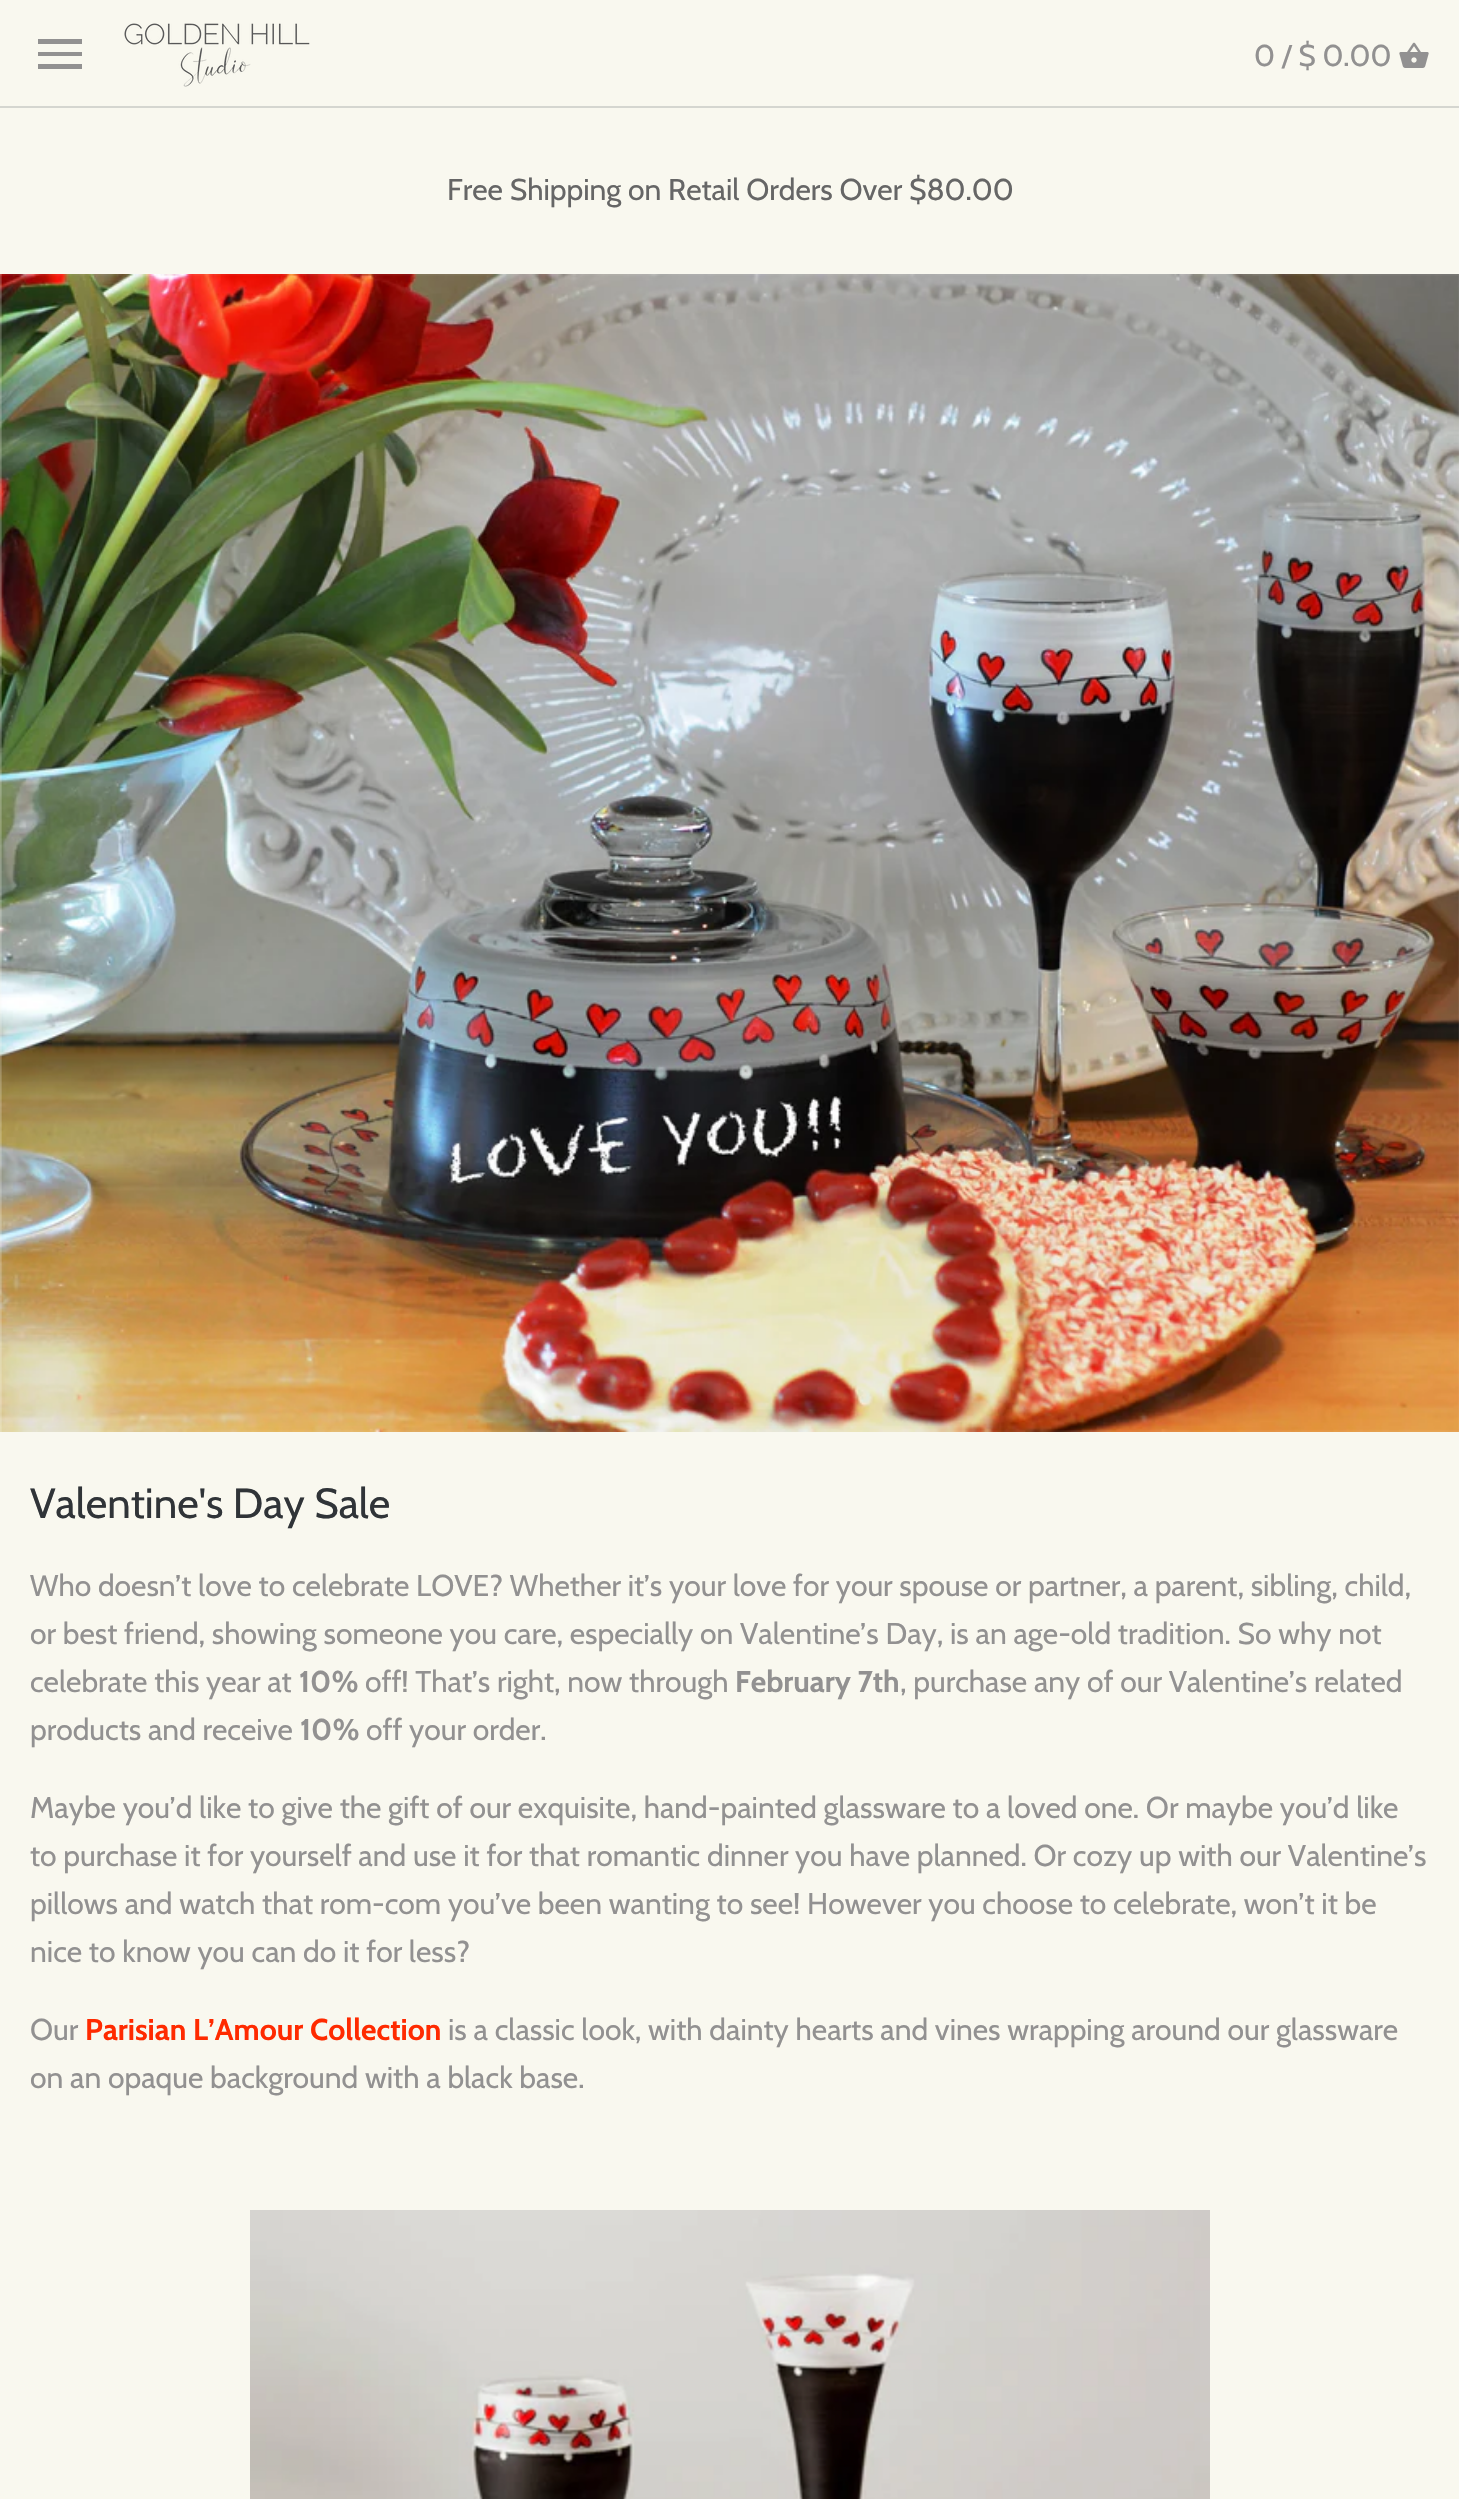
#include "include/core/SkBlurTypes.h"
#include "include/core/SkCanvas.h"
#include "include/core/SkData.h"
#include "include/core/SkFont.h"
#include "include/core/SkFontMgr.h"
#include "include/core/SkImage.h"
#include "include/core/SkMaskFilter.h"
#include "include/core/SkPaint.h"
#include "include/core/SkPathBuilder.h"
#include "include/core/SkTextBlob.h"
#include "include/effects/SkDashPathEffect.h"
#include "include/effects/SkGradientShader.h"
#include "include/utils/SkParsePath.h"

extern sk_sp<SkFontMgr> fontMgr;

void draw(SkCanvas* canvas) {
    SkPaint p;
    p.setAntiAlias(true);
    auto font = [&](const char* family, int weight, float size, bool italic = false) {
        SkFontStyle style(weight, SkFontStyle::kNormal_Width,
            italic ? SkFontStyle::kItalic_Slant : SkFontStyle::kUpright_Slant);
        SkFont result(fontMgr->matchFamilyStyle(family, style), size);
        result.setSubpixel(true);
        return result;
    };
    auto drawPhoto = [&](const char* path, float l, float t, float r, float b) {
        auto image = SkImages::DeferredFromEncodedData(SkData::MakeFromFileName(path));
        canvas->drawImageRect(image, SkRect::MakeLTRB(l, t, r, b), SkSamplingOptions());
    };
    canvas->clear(0xFFF9F8EF);
    p.setColor(0xFFD5D6D0);
    canvas->drawRect(SkRect::MakeLTRB(0, 106, 1459, 108), p);
    p.setColor(0xFF929191);
    canvas->drawPath(SkPathBuilder().moveTo(38, 69).lineTo(82, 69).lineTo(82, 64).lineTo(38, 64).close().moveTo(38, 56).lineTo(82, 56).lineTo(82, 52).lineTo(38, 52).close().moveTo(38, 39).lineTo(38, 44).lineTo(82, 44).lineTo(82, 39).close().detach(), p);
    drawPhoto("media/1.png", 124, 23, 310, 87);
    auto font1 = font("Cabin", 400, 30);
    canvas->drawString("0 / $ 0.00", 1254, 66, font1, p);
    drawPhoto("media/2.png", 1399, 42, 1429, 68);
    p.setColor(0xFF666666);
    canvas->drawString("Free Shipping on Retail Orders Over $80.00", 447, 200, font1, p);
    drawPhoto("media/3.png", 0, 274, 1459, 1432);
    auto font2 = font("Cabin", 400, 42);
    p.setColor(0xFF303438);
    canvas->drawString("Valentine's Day Sale", 30, 1518, font2, p);
    p.setColor(0xFF929191);
    {
        const struct { const char* s; float x, y; } items[] = {
            {"Who doesn’t love to celebrate LOVE? Whether it’s your love for your spouse or partner, a parent, sibling, child,", 30, 1596},
            {"or best friend, showing someone you care, especially on Valentine’s Day, is an age-old tradition. So why not", 30, 1644},
            {"celebrate this year at", 30, 1692},
        };
        for (auto [s, x, y] : items) {
            canvas->drawString(s, x, y, font1, p);
        }
    }
    auto font3 = font("Cabin", 700, 30);
    canvas->drawString("10%", 299, 1692, font3, p);
    canvas->drawString("off! That’s right, now through", 365, 1692, font1, p);
    canvas->drawString("February 7th", 735, 1692, font3, p);
    canvas->drawString(", purchase any of our Valentine’s related", 900, 1692, font1, p);
    canvas->drawString("products and receive", 30, 1740, font1, p);
    canvas->drawString("10%", 300, 1740, font3, p);
    {
        const struct { const char* s; float x, y; } items[] = {
            {"off your order.", 366, 1740},
            {"Maybe you’d like to give the gift of our exquisite, hand-painted glassware to a loved one. Or maybe you’d like", 30, 1818},
            {"to purchase it for yourself and use it for that romantic dinner you have planned. Or cozy up with our Valentine’s", 30, 1866},
            {"pillows and watch that rom-com you’ve been wanting to see! However you choose to celebrate, won’t it be", 30, 1914},
            {"nice to know you can do it for less?", 30, 1962},
            {"Our", 30, 2040},
        };
        for (auto [s, x, y] : items) {
            canvas->drawString(s, x, y, font1, p);
        }
    }
    p.setColor(0xFFFF2A00);
    canvas->drawString("Parisian L’Amour Collection", 85, 2040, font3, p);
    p.setColor(0xFF929191);
    canvas->drawString("is a classic look, with dainty hearts and vines wrapping around our glassware", 448, 2040, font1, p);
    canvas->drawString("on an opaque background with a black base.", 30, 2088, font1, p);
    drawPhoto("media/4.png", 250, 2210, 1210, 2499);
}
